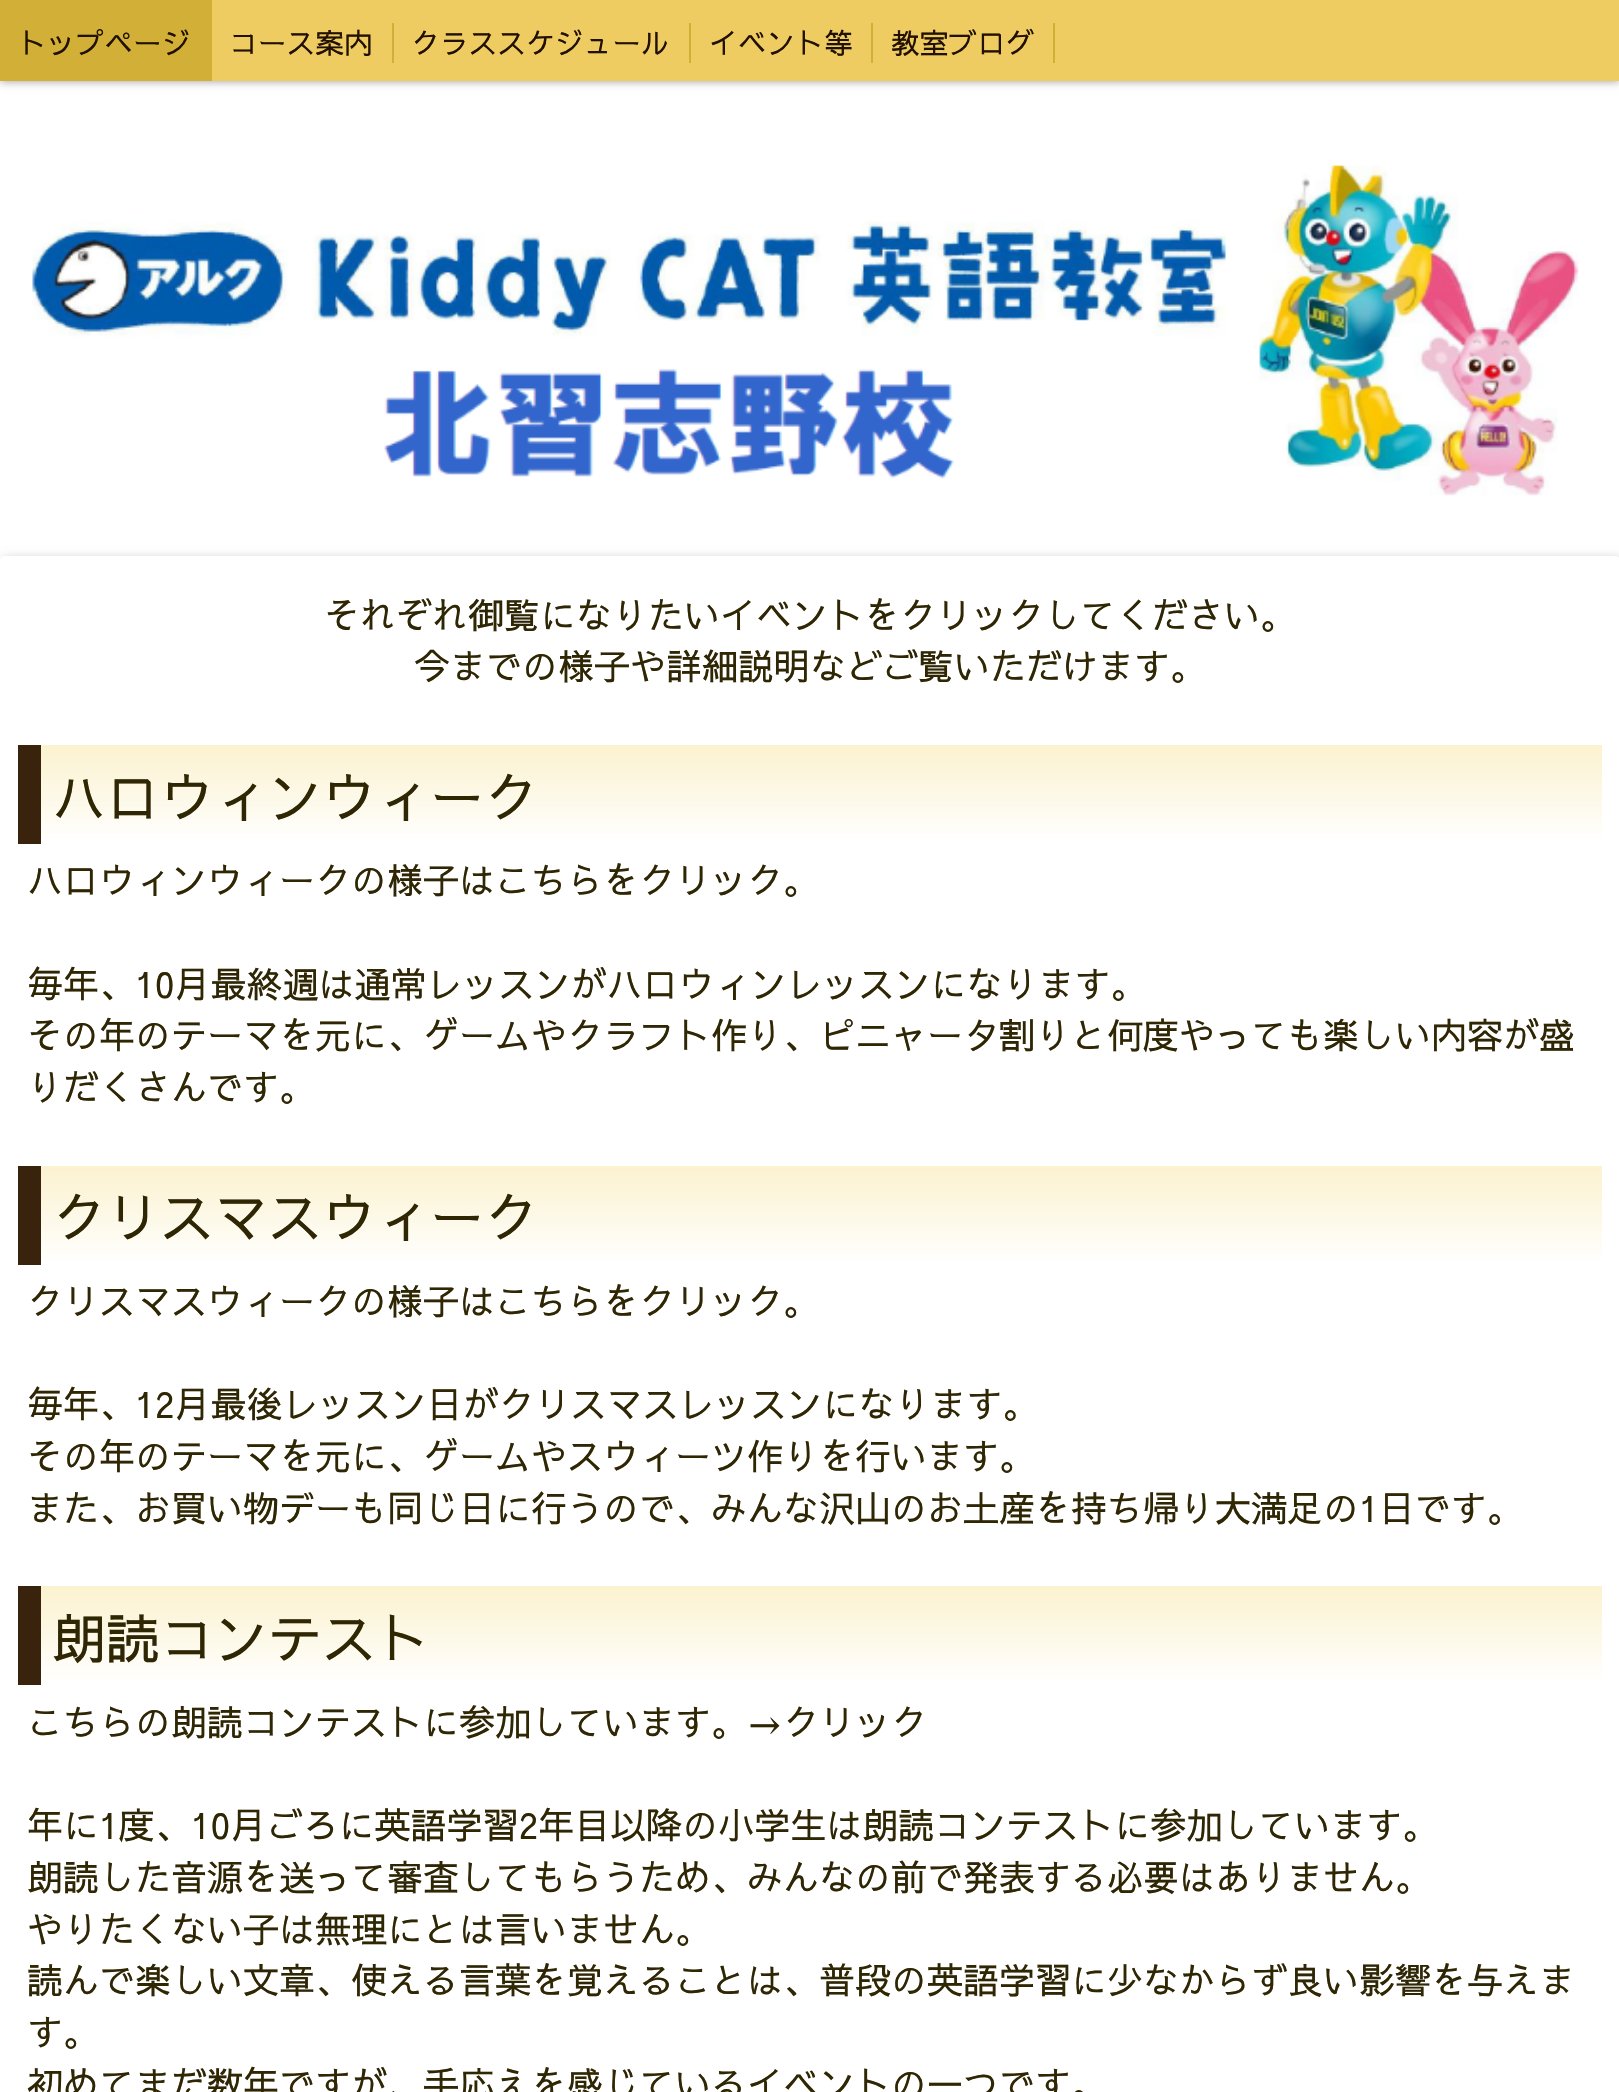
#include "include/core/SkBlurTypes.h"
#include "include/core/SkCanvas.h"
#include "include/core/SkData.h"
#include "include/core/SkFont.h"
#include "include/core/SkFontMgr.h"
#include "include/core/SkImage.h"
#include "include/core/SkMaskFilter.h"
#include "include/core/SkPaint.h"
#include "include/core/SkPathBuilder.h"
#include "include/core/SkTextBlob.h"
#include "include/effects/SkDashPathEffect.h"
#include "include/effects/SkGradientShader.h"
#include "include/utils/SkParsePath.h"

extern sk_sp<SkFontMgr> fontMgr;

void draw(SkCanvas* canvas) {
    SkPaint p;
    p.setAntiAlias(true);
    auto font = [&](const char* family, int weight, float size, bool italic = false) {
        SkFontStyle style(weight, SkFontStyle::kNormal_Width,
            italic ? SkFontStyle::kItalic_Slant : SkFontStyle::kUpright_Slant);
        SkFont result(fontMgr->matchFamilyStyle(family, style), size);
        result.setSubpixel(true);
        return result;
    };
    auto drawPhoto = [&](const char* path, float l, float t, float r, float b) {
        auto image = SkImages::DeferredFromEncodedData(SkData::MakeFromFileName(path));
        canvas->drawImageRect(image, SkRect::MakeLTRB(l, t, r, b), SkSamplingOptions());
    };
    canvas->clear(0xFFFFFFFF);
    p.setColor(0x66010101);
    p.setMaskFilter(SkMaskFilter::MakeBlur(kNormal_SkBlurStyle, 4.5f));
    canvas->drawRect(SkRect::MakeLTRB(0, 0, 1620, 81), p);
    p.setMaskFilter(nullptr);
    p.setColor(0xFFEFCC62);
    canvas->drawRect(SkRect::MakeLTRB(212, 0, 1619, 81), p);
    p.setColor(0xFFD2B038);
    canvas->drawRect(SkRect::MakeLTRB(0, 0, 212, 81), p);
    auto font1 = font("Sawarabi Gothic", 400, 28.75f);
    p.setColor(0xFF221100);
    canvas->drawString("トップページ", 18, 54, font1, p);
    p.setColor(0xFFD2B038);
    canvas->drawRect(SkRect::MakeLTRB(392, 23, 394, 63), p);
    p.setColor(0xFF221100);
    canvas->drawString("コース案内", 229, 54, font1, p);
    p.setColor(0xFFD2B038);
    canvas->drawRect(SkRect::MakeLTRB(689, 23, 691, 63), p);
    p.setColor(0xFF221100);
    canvas->drawString("クラススケジュール", 411, 54, font1, p);
    p.setColor(0xFFD2B038);
    canvas->drawRect(SkRect::MakeLTRB(871, 23, 873, 63), p);
    p.setColor(0xFF221100);
    canvas->drawString("イベント等", 709, 54, font1, p);
    p.setColor(0xFFD2B038);
    canvas->drawRect(SkRect::MakeLTRB(1053, 23, 1055, 63), p);
    p.setColor(0xFF221100);
    canvas->drawString("教室ブログ", 891, 54, font1, p);
    drawPhoto("media/1.png", 32, 165, 1579, 496);
    canvas->save();
    canvas->clipPath(SkPathBuilder(SkPathFillType::kEvenOdd).moveTo(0, 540).lineTo(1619, 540).lineTo(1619, 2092).lineTo(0, 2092).close().moveTo(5, 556).lineTo(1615, 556).cubicTo(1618, 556, 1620, 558, 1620, 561).lineTo(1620, 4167).cubicTo(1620, 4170, 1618, 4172, 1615, 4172).lineTo(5, 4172).cubicTo(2, 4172, 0, 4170, 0, 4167).lineTo(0, 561).cubicTo(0, 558, 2, 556, 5, 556).close().detach(), true);
    p.setColor(0x33000000);
    p.setMaskFilter(SkMaskFilter::MakeBlur(kNormal_SkBlurStyle, 5.5f));
    canvas->drawRoundRect(SkRect::MakeLTRB(2, 558, 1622, 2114), 5, 5, p);
    p.setMaskFilter(nullptr);
    canvas->restore();
    auto font2 = font("Sawarabi Gothic", 400, 36);
    p.setColor(0xFF2F2604);
    canvas->drawString("それぞれ御覧になりたいイベントをクリックしてください。", 324, 629, font2, p);
    canvas->drawString("今までの様子や詳細説明などご覧いただけます。", 414, 680, font2, p);
    {
        const SkColor colors[] = {0xFFFBF2CF, 0xFFFFFFFF};
        const float stops[] = {0, 1};
        const SkPoint ends[] = {{821, 745}, {821, 844}};
        p.setShader(SkGradientShader::MakeLinear(ends, colors, stops, 2, SkTileMode::kClamp));
        p.setAlpha(255);
    }
    canvas->drawRect(SkRect::MakeLTRB(41, 745, 1602, 839), p);
    p.setShader(nullptr);
    p.setColor(0xFF3A230C);
    canvas->drawRect(SkRect::MakeLTRB(18, 745, 41, 844), p);
    auto font3 = font("Sawarabi Gothic", 400, 54);
    p.setColor(0xFF2F2604);
    canvas->drawString("ハロウィンウィーク", 52, 818, font3, p);
    {
        const struct { const char* s; float x, y; } items[] = {
            {"ハロウィンウィークの様子はこちらをクリック。", 27, 894},
            {"毎年、10月最終週は通常レッスンがハロウィンレッスンになります。", 27, 998},
            {"その年のテーマを元に、ゲームやクラフト作り、ピニャータ割りと何度やっても楽しい内容が盛", 27, 1049},
            {"りだくさんです。", 27, 1101},
        };
        for (auto [s, x, y] : items) {
            canvas->drawString(s, x, y, font2, p);
        }
    }
    {
        const SkColor colors[] = {0xFFFBF2CF, 0xFFFFFFFF};
        const float stops[] = {0, 1};
        const SkPoint ends[] = {{821, 1166}, {821, 1265}};
        p.setShader(SkGradientShader::MakeLinear(ends, colors, stops, 2, SkTileMode::kClamp));
        p.setAlpha(255);
    }
    canvas->drawRect(SkRect::MakeLTRB(41, 1166, 1602, 1260), p);
    p.setShader(nullptr);
    p.setColor(0xFF3A230C);
    canvas->drawRect(SkRect::MakeLTRB(18, 1166, 41, 1265), p);
    p.setColor(0xFF2F2604);
    canvas->drawString("クリスマスウィーク", 52, 1238, font3, p);
    {
        const struct { const char* s; float x, y; } items[] = {
            {"クリスマスウィークの様子はこちらをクリック。", 27, 1315},
            {"毎年、12月最後レッスン日がクリスマスレッスンになります。", 27, 1418},
            {"その年のテーマを元に、ゲームやスウィーツ作りを行います。", 27, 1470},
            {"また、お買い物デーも同じ日に行うので、みんな沢山のお土産を持ち帰り大満足の1日です。", 27, 1522},
        };
        for (auto [s, x, y] : items) {
            canvas->drawString(s, x, y, font2, p);
        }
    }
    {
        const SkColor colors[] = {0xFFFBF2CF, 0xFFFFFFFF};
        const float stops[] = {0, 1};
        const SkPoint ends[] = {{821, 1586}, {821, 1685}};
        p.setShader(SkGradientShader::MakeLinear(ends, colors, stops, 2, SkTileMode::kClamp));
        p.setAlpha(255);
    }
    canvas->drawRect(SkRect::MakeLTRB(41, 1586, 1602, 1680), p);
    p.setShader(nullptr);
    p.setColor(0xFF3A230C);
    canvas->drawRect(SkRect::MakeLTRB(18, 1586, 41, 1685), p);
    p.setColor(0xFF2F2604);
    canvas->drawString("朗読コンテスト", 52, 1659, font3, p);
    {
        const struct { const char* s; float x, y; } items[] = {
            {"こちらの朗読コンテストに参加しています。→クリック", 27, 1736},
            {"年に1度、10月ごろに英語学習2年目以降の小学生は朗読コンテストに参加しています。", 27, 1839},
            {"朗読した音源を送って審査してもらうため、みんなの前で発表する必要はありません。", 27, 1891},
            {"やりたくない子は無理にとは言いません。", 27, 1943},
            {"読んで楽しい文章、使える言葉を覚えることは、普段の英語学習に少なからず良い影響を与えま", 27, 1994},
            {"す。", 27, 2046},
            {"初めてまだ数年ですが、手応えを感じているイベントの一つです。", 27, 2098},
        };
        for (auto [s, x, y] : items) {
            canvas->drawString(s, x, y, font2, p);
        }
    }
}
